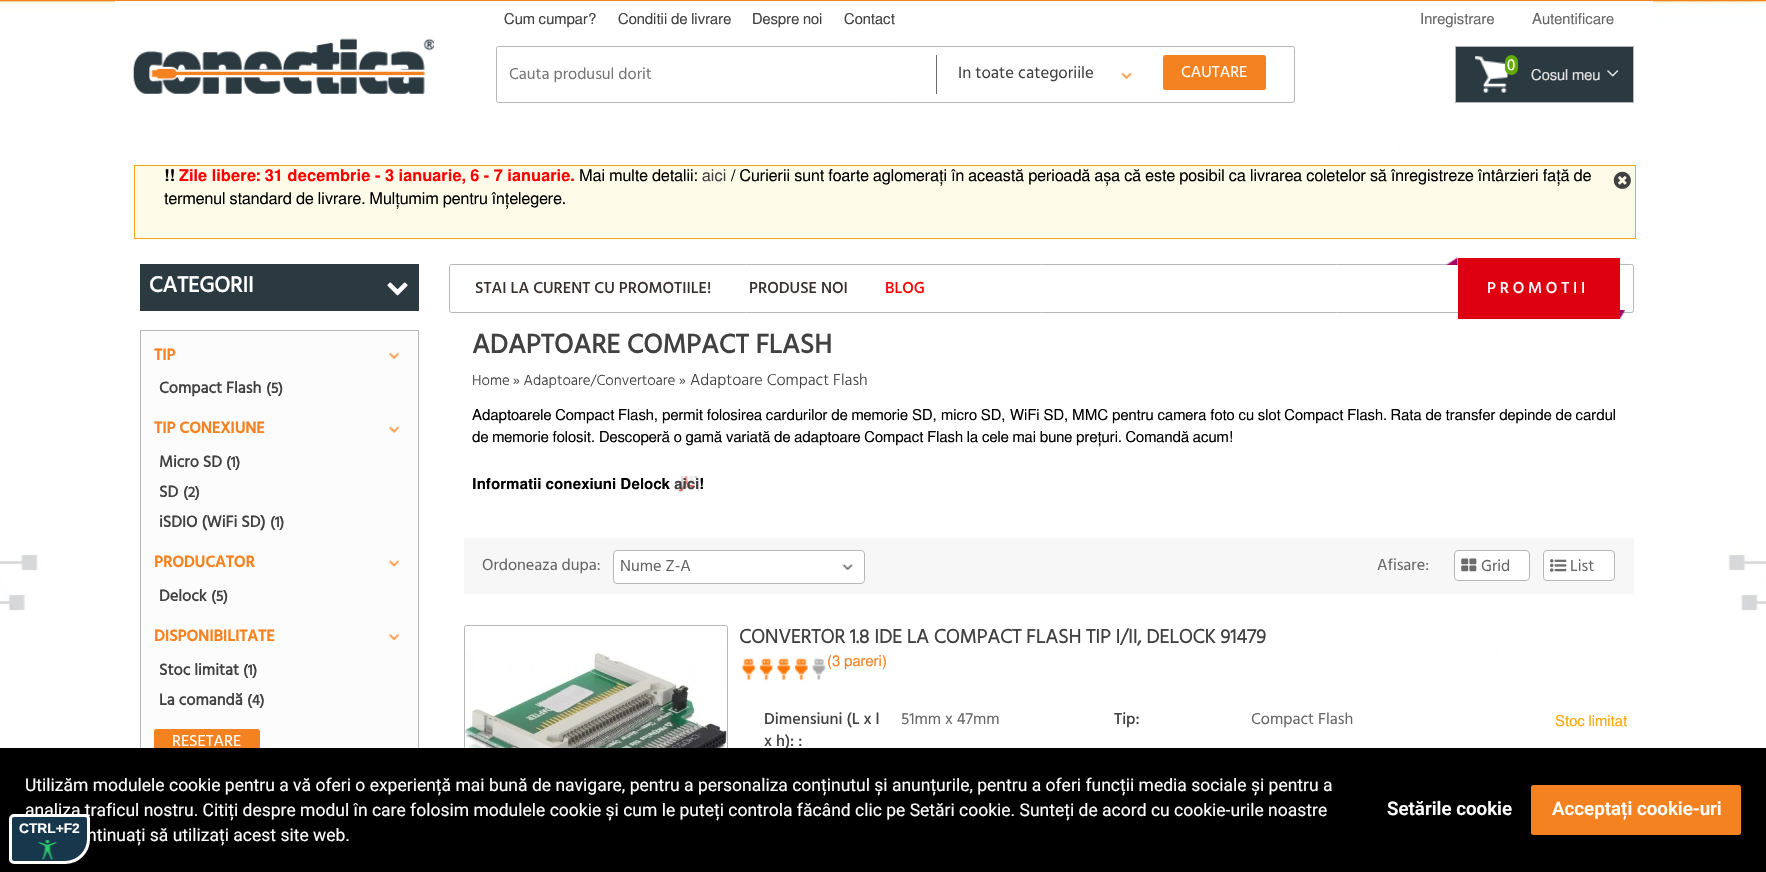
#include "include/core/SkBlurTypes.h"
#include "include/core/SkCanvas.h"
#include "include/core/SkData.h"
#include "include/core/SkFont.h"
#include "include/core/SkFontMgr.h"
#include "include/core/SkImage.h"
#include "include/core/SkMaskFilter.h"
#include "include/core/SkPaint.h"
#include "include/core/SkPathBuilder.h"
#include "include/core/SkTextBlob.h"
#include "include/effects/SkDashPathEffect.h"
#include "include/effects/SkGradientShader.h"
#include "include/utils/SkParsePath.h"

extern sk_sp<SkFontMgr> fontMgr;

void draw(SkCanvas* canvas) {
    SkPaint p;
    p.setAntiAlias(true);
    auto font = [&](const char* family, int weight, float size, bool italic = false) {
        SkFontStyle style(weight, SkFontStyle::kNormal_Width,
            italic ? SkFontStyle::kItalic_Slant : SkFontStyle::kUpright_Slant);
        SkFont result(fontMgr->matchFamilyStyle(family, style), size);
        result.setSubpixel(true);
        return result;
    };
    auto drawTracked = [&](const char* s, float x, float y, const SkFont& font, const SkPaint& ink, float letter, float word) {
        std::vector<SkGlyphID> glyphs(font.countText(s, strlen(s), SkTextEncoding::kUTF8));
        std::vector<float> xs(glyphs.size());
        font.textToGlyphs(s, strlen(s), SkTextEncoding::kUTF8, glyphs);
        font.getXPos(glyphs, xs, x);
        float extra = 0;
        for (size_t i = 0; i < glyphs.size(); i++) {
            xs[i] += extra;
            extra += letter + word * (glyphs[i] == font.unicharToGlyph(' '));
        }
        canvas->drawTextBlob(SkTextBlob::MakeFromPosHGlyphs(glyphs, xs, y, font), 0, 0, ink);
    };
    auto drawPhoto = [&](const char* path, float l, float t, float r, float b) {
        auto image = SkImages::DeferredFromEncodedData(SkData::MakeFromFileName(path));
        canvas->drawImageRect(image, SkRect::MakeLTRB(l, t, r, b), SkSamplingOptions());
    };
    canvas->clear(0xFFFFFFFF);
    drawPhoto("media/1.png", 0, 1, 1766, 748);
    p.setColor(0xFFF58220);
    canvas->drawRect(SkRect::MakeLTRB(0, 0, 1766, 1), p);
    p.setColor(0xFFFFFFFF);
    canvas->drawRect(SkRect::MakeLTRB(115, 1, 1653, 121), p);
    drawPhoto("media/2.png", 133, 38, 434, 94);
    auto font1 = font("FreeSans", 400, 15);
    p.setColor(0xFF414142);
    {
        const struct { const char* s; float x, y; } items[] = {
            {"Cum cumpar?", 504, 24},
            {"Conditii de livrare", 618, 24},
            {"Despre noi", 752, 24},
            {"Contact", 844, 24},
        };
        for (auto [s, x, y] : items) {
            canvas->drawString(s, x, y, font1, p);
        }
    }
    p.setColor(0xFF666666);
    canvas->drawString("Inregistrare", 1420, 24, font1, p);
    canvas->drawString("Autentificare", 1532, 24, font1, p);
    p.setStyle(SkPaint::kStroke_Style);
    p.setStrokeWidth(1);
    p.setColor(0xFFB7B7B7);
    canvas->drawRoundRect(SkRect::MakeLTRB(496.5f, 46.5f, 1294.5f, 102.5f), 2, 2, p);
    p.setStyle(SkPaint::kFill_Style);
    p.setColor(0xFF6B6B6B);
    canvas->drawRect(SkRect::MakeLTRB(936, 55, 937, 94), p);
    auto font2 = font("Hind", 400, 16.25f);
    p.setColor(0xFF757575);
    canvas->drawString("Cauta produsul dorit", 509, 79, font2, p);
    drawPhoto("media/3.png", 1121, 72, 1132, 79);
    auto font3 = font("Hind", 400, 16.75f);
    p.setColor(0xFF414142);
    canvas->drawString("In toate categoriile", 958, 78, font3, p);
    p.setColor(0xFFF58220);
    canvas->drawRoundRect(SkRect::MakeLTRB(1163, 55, 1266, 90), 2.5f, 2.5f, p);
    p.setColor(0xFFFFFFFF);
    canvas->drawString("CAUTARE", 1181, 77, font2, p);
    p.setColor(0xFF2B3941);
    canvas->drawRect(SkRect::MakeLTRB(1456, 47, 1633, 102), p);
    drawPhoto("media/4.png", 1475, 56, 1508, 93);
    p.setStyle(SkPaint::kStroke_Style);
    p.setColor(0xFFB7B7B7);
    canvas->drawRect(SkRect::MakeLTRB(1455.5f, 46.5f, 1633.5f, 102.5f), p);
    p.setStyle(SkPaint::kFill_Style);
    p.setColor(0xFF63AB00);
    canvas->drawRoundRect(SkRect::MakeLTRB(1505, 55, 1518, 75), 6.5f, 6.5f, p);
    p.setColor(0xFFFFFFFF);
    canvas->drawString("0", 1507, 70, font1, p);
    p.setColor(0xFFE3E3E3);
    canvas->drawString("Cosul meu", 1531, 80, font1, p);
    drawPhoto("media/5.png", 1607, 70, 1619, 77);
    {
        const struct { float l, t, r, b; SkColor color; } items[] = {
            {1393, 121, 1434, 140, 0xFFFFFFFF},
            {1400, 140, 1438, 165, 0xFFFFFFFF},
            {1407, 165, 1495, 748, 0xFFFFFFFF},
        };
        for (auto [l, t, r, b, color] : items) {
            p.setColor(color);
            canvas->drawRect(SkRect::MakeLTRB(l, t, r, b), p);
        }
    }
    p.setColor(0xFFFFFBE9);
    canvas->drawRect(SkRect::MakeLTRB(134.5f, 165.5f, 1635.5f, 238.5f), p);
    p.setStyle(SkPaint::kStroke_Style);
    p.setColor(0xFFF9A818);
    canvas->drawRect(SkRect::MakeLTRB(134.5f, 165.5f, 1635.5f, 238.5f), p);
    auto font4 = font("FreeSans", 600, 16.25f);
    p.setStyle(SkPaint::kFill_Style);
    p.setColor(0xFF000000);
    canvas->drawString("!!", 164, 181, font4, p);
    p.setColor(0xFFFF0000);
    canvas->drawString("Zile libere: 31 decembrie - 3 ianuarie, 6 - 7 ianuarie.", 179, 181, font4, p);
    auto font5 = font("FreeSans", 400, 16.25f);
    p.setColor(0xFF000000);
    canvas->drawString("Mai multe detalii:", 579, 181, font5, p);
    p.setColor(0xFF414142);
    canvas->drawString("aici", 702, 181, font5, p);
    p.setColor(0xFF000000);
    canvas->drawString("/ Curierii sunt foarte aglomerați în această perioadă așa că este posibil ca livrarea coletelor să înregistreze întârzieri față de", 731, 181, font5, p);
    canvas->drawString("termenul standard de livrare. Mulțumim pentru înțelegere.", 164, 204, font5, p);
    drawPhoto("media/6.png", 1613, 171, 1631, 189);
    p.setColor(0xFF2B3941);
    canvas->drawRect(SkRect::MakeLTRB(140, 264, 419, 311), p);
    auto font6 = font("Hind", 700, 22.5f);
    p.setColor(0xFFFFFFFF);
    canvas->drawString("CATEGORII", 149, 292, font6, p);
    drawPhoto("media/7.png", 387, 282, 408, 296);
    p.setStyle(SkPaint::kStroke_Style);
    p.setColor(0xFFB7B7B7);
    canvas->drawRoundRect(SkRect::MakeLTRB(449.5f, 264.5f, 1633.5f, 312.5f), 2, 2, p);
    auto font7 = font("Hind", 500, 16.25f);
    p.setStyle(SkPaint::kFill_Style);
    p.setColor(0xFF362F2D);
    canvas->drawString("STAI LA CURENT CU PROMOTIILE!", 475, 293, font7, p);
    canvas->drawString("PRODUSE NOI", 749, 293, font7, p);
    p.setColor(0xFFFF0000);
    canvas->drawString("BLOG", 885, 293, font7, p);
    p.setColor(0xFFDE0010);
    canvas->drawRect(SkRect::MakeLTRB(1458, 258, 1620, 319), p);
    drawPhoto("media/8.png", 1446, 257, 1458, 265);
    p.setColor(0xFFFFFFFF);
    drawTracked("PROMOTII", 1487, 293, font7, p, 3.75f, 0);
    drawPhoto("media/9.png", 1620, 310, 1625, 319);
    p.setColor(0xFFFCFCFC);
    canvas->drawRect(SkRect::MakeLTRB(141, 331, 418, 748), p);
    p.setStyle(SkPaint::kStroke_Style);
    p.setColor(0xFFB7B7B7);
    canvas->drawRect(SkRect::MakeLTRB(140.5f, 330.5f, 418.5f, 779.5f), p);
    drawPhoto("media/10.png", 388, 352, 399, 359);
    auto font8 = font("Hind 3", 700, 16.25f);
    p.setStyle(SkPaint::kFill_Style);
    p.setColor(0xFFF58220);
    canvas->drawString("TIP", 154, 360, font8, p);
    auto font9 = font("Hind", 700, 16.25f);
    p.setColor(0xFF414142);
    canvas->drawString("Compact Flash", 159, 393, font9, p);
    auto font10 = font("Hind", 700, 15);
    canvas->drawString("(5)", 266, 393, font10, p);
    drawPhoto("media/11.png", 388, 426, 399, 433);
    p.setColor(0xFFF58220);
    canvas->drawString("TIP CONEXIUNE", 154, 433, font8, p);
    p.setColor(0xFF414142);
    canvas->drawString("Micro SD", 159, 467, font9, p);
    canvas->drawString("(1)", 226, 467, font10, p);
    canvas->drawString("SD", 159, 497, font9, p);
    canvas->drawString("(2)", 183, 497, font10, p);
    canvas->drawString("iSDIO (WiFi SD)", 159, 527, font9, p);
    canvas->drawString("(1)", 270, 527, font10, p);
    drawPhoto("media/12.png", 388, 560, 399, 567);
    p.setColor(0xFFF58220);
    canvas->drawString("PRODUCATOR", 154, 567, font8, p);
    p.setColor(0xFF414142);
    canvas->drawString("Delock", 159, 601, font9, p);
    canvas->drawString("(5)", 211, 601, font10, p);
    drawPhoto("media/13.png", 388, 633, 399, 640);
    p.setColor(0xFFF58220);
    canvas->drawString("DISPONIBILITATE", 154, 641, font8, p);
    p.setColor(0xFF414142);
    canvas->drawString("Stoc limitat", 159, 675, font9, p);
    canvas->drawString("(1)", 243, 675, font10, p);
    canvas->drawString("La comandă", 159, 705, font9, p);
    canvas->drawString("(4)", 247, 705, font10, p);
    p.setColor(0xFFF58220);
    canvas->drawRoundRect(SkRect::MakeLTRB(154, 729, 260, 754), 2.5f, 2.5f, p);
    p.setColor(0xFFFFFFFF);
    canvas->drawString("RESETARE", 172, 746, font2, p);
    auto font11 = font("Hind", 700, 27.5f);
    p.setColor(0xFF414142);
    canvas->drawString("ADAPTOARE COMPACT FLASH", 472, 353, font11, p);
    auto font12 = font("Hind", 300, 15);
    {
        const struct { const char* s; float x, y; } items[] = {
            {"Home", 472, 385},
            {"» Adaptoare/Convertoare", 513, 385},
            {"»", 679, 385},
        };
        for (auto [s, x, y] : items) {
            canvas->drawString(s, x, y, font12, p);
        }
    }
    auto font13 = font("Hind", 300, 16.25f);
    canvas->drawString("Adaptoare Compact Flash", 690, 385, font13, p);
    p.setColor(0xFF000000);
    {
        const struct { const char* s; float x, y; } items[] = {
            {"Adaptoarele Compact Flash,", 472, 420},
            {"permit folosirea cardurilor de memorie", 662, 420},
            {"SD,", 912, 420},
            {"micro SD,", 941, 420},
            {"WiFi SD,", 1010, 420},
            {"MMC", 1072, 420},
            {"pentru camera foto cu slot Compact Flash. Rata de transfer depinde de cardul", 1112, 420},
            {"de memorie folosit.", 472, 442},
            {"Descoperă o gamă variată de adaptoare Compact Flash la cele mai bune prețuri. Comandă acum!", 599, 442},
        };
        for (auto [s, x, y] : items) {
            canvas->drawString(s, x, y, font1, p);
        }
    }
    auto font14 = font("FreeSans", 600, 15);
    canvas->drawString("Informatii conexiuni Delock", 472, 489, font14, p);
    drawPhoto("media/14.png", 678, 476, 699, 492);
    p.setColor(0xFF414142);
    canvas->drawString("aici", 674, 489, font14, p);
    p.setColor(0xFF000000);
    canvas->drawString("!", 699, 489, font14, p);
    p.setColor(0xFFF7F7F7);
    canvas->drawRoundRect(SkRect::MakeLTRB(464, 538, 1634, 594), 2.5f, 2.5f, p);
    p.setColor(0xFF666666);
    canvas->drawString("Ordoneaza dupa:", 482, 570, font2, p);
    p.setColor(0xFFFFFFFF);
    canvas->drawRoundRect(SkRect::MakeLTRB(613, 550, 865, 584), 4, 4, p);
    drawPhoto("media/15.png", 842, 563, 853, 570);
    p.setStyle(SkPaint::kStroke_Style);
    p.setColor(0xFFB7B7B7);
    canvas->drawRoundRect(SkRect::MakeLTRB(613.5f, 550.5f, 864.5f, 583.5f), 3.5f, 3.5f, p);
    p.setStyle(SkPaint::kFill_Style);
    p.setColor(0xFF666666);
    canvas->drawString("Nume Z-A", 620, 571, font2, p);
    canvas->drawString("Afisare:", 1377, 570, font2, p);
    p.setColor(0xFFFFFFFF);
    canvas->drawRoundRect(SkRect::MakeLTRB(1454.5f, 550.5f, 1529.5f, 580.5f), 3.5f, 3.5f, p);
    p.setStyle(SkPaint::kStroke_Style);
    p.setColor(0xFFB7B7B7);
    canvas->drawRoundRect(SkRect::MakeLTRB(1454.5f, 550.5f, 1529.5f, 580.5f), 3.5f, 3.5f, p);
    drawPhoto("media/16.png", 1461, 558, 1477, 572);
    p.setStyle(SkPaint::kFill_Style);
    p.setColor(0xFF666666);
    canvas->drawString("Grid", 1481, 571, font2, p);
    p.setColor(0xFFFFFFFF);
    canvas->drawRoundRect(SkRect::MakeLTRB(1543.5f, 550.5f, 1614.5f, 580.5f), 3.5f, 3.5f, p);
    p.setStyle(SkPaint::kStroke_Style);
    p.setColor(0xFFB7B7B7);
    canvas->drawRoundRect(SkRect::MakeLTRB(1543.5f, 550.5f, 1614.5f, 580.5f), 3.5f, 3.5f, p);
    drawPhoto("media/17.png", 1550, 559, 1567, 572);
    p.setStyle(SkPaint::kFill_Style);
    p.setColor(0xFF666666);
    canvas->drawString("List", 1570, 571, font2, p);
    p.setStyle(SkPaint::kStroke_Style);
    p.setColor(0xFFB7B7B7);
    canvas->drawRoundRect(SkRect::MakeLTRB(464.5f, 625.5f, 727.5f, 833.5f), 2, 2, p);
    drawPhoto("media/18.png", 465, 651, 727, 748);
    auto font15 = font("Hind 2", 700, 20);
    p.setStyle(SkPaint::kFill_Style);
    p.setColor(0xFF414142);
    canvas->drawString("CONVERTOR 1.8 IDE LA COMPACT FLASH TIP I/II, DELOCK 91479", 739, 643, font15, p);
    drawPhoto("media/19.png", 742, 658, 826, 681);
    p.setColor(0xFFF58220);
    canvas->drawString("(3 pareri)", 827, 666, font1, p);
    p.setColor(0xFF414142);
    canvas->drawString("Dimensiuni (L x l", 764, 724, font7, p);
    canvas->drawString("x h): :", 764, 746, font7, p);
    p.setColor(0xFF666666);
    canvas->drawString("51mm x 47mm", 901, 724, font2, p);
    p.setColor(0xFF414142);
    canvas->drawString("Tip:", 1114, 724, font7, p);
    p.setColor(0xFF666666);
    canvas->drawString("Compact Flash", 1251, 724, font2, p);
    p.setColor(0xFFFFA500);
    canvas->drawString("Stoc limitat", 1555, 726, font1, p);
    p.setColor(0xFF000000);
    canvas->drawRect(SkRect::MakeLTRB(0, 748, 1766, 872), p);
    auto font16 = font("Roboto", 400, 17.5f);
    p.setColor(0xFFFFFFFF);
    {
        const struct { const char* s; float x, y; } items[] = {
            {"Utilizăm modulele cookie pentru a vă oferi o experiență mai bună de navigare, pentru a personaliza conținutul și anunțurile, pentru a oferi funcții media sociale și pentru a", 25, 791},
            {"analiza traficul nostru. Citiți despre modul în care folosim modulele cookie și cum le puteți controla făcând clic pe Setări cookie. Sunteți de acord cu cookie-urile noastre", 25, 816},
            {"ntinuați să utilizați acest site web.", 87, 841},
        };
        for (auto [s, x, y] : items) {
            canvas->drawString(s, x, y, font16, p);
        }
    }
    auto font17 = font("Roboto", 600, 18.75f);
    canvas->drawString("Setările cookie", 1387, 815, font17, p);
    p.setColor(0xFFF58220);
    canvas->drawRoundRect(SkRect::MakeLTRB(1531, 785, 1741, 835), 2.5f, 2.5f, p);
    p.setColor(0xFFFFFFFF);
    canvas->drawString("Acceptați cookie-uri", 1552, 815, font17, p);
    p.setColor(0xFF17384C);
    canvas->drawPath(SkPathBuilder().moveTo(14, 815.5f).lineTo(85, 815.5f).cubicTo(87, 815.5f, 88.5f, 817, 88.5f, 819).lineTo(88.5f, 839).cubicTo(88.5f, 852, 78, 862.5f, 65, 862.5f).lineTo(14, 862.5f).cubicTo(12, 862.5f, 10.5f, 861, 10.5f, 859).lineTo(10.5f, 819).cubicTo(10.5f, 817, 12, 815.5f, 14, 815.5f).close().detach(), p);
    p.setStyle(SkPaint::kStroke_Style);
    p.setStrokeWidth(3);
    p.setColor(0xFFFFFFFF);
    canvas->drawPath(SkPathBuilder().moveTo(14, 815.5f).lineTo(85, 815.5f).cubicTo(87, 815.5f, 88.5f, 817, 88.5f, 819).lineTo(88.5f, 839).cubicTo(88.5f, 852, 78, 862.5f, 65, 862.5f).lineTo(14, 862.5f).cubicTo(12, 862.5f, 10.5f, 861, 10.5f, 859).lineTo(10.5f, 819).cubicTo(10.5f, 817, 12, 815.5f, 14, 815.5f).close().detach(), p);
    auto font18 = font("Liberation Sans", 700, 13.75f);
    p.setStyle(SkPaint::kFill_Style);
    canvas->drawString("CTRL+F2", 19, 833, font18, p);
    drawPhoto("media/20.png", 38, 840, 58, 860);
}
